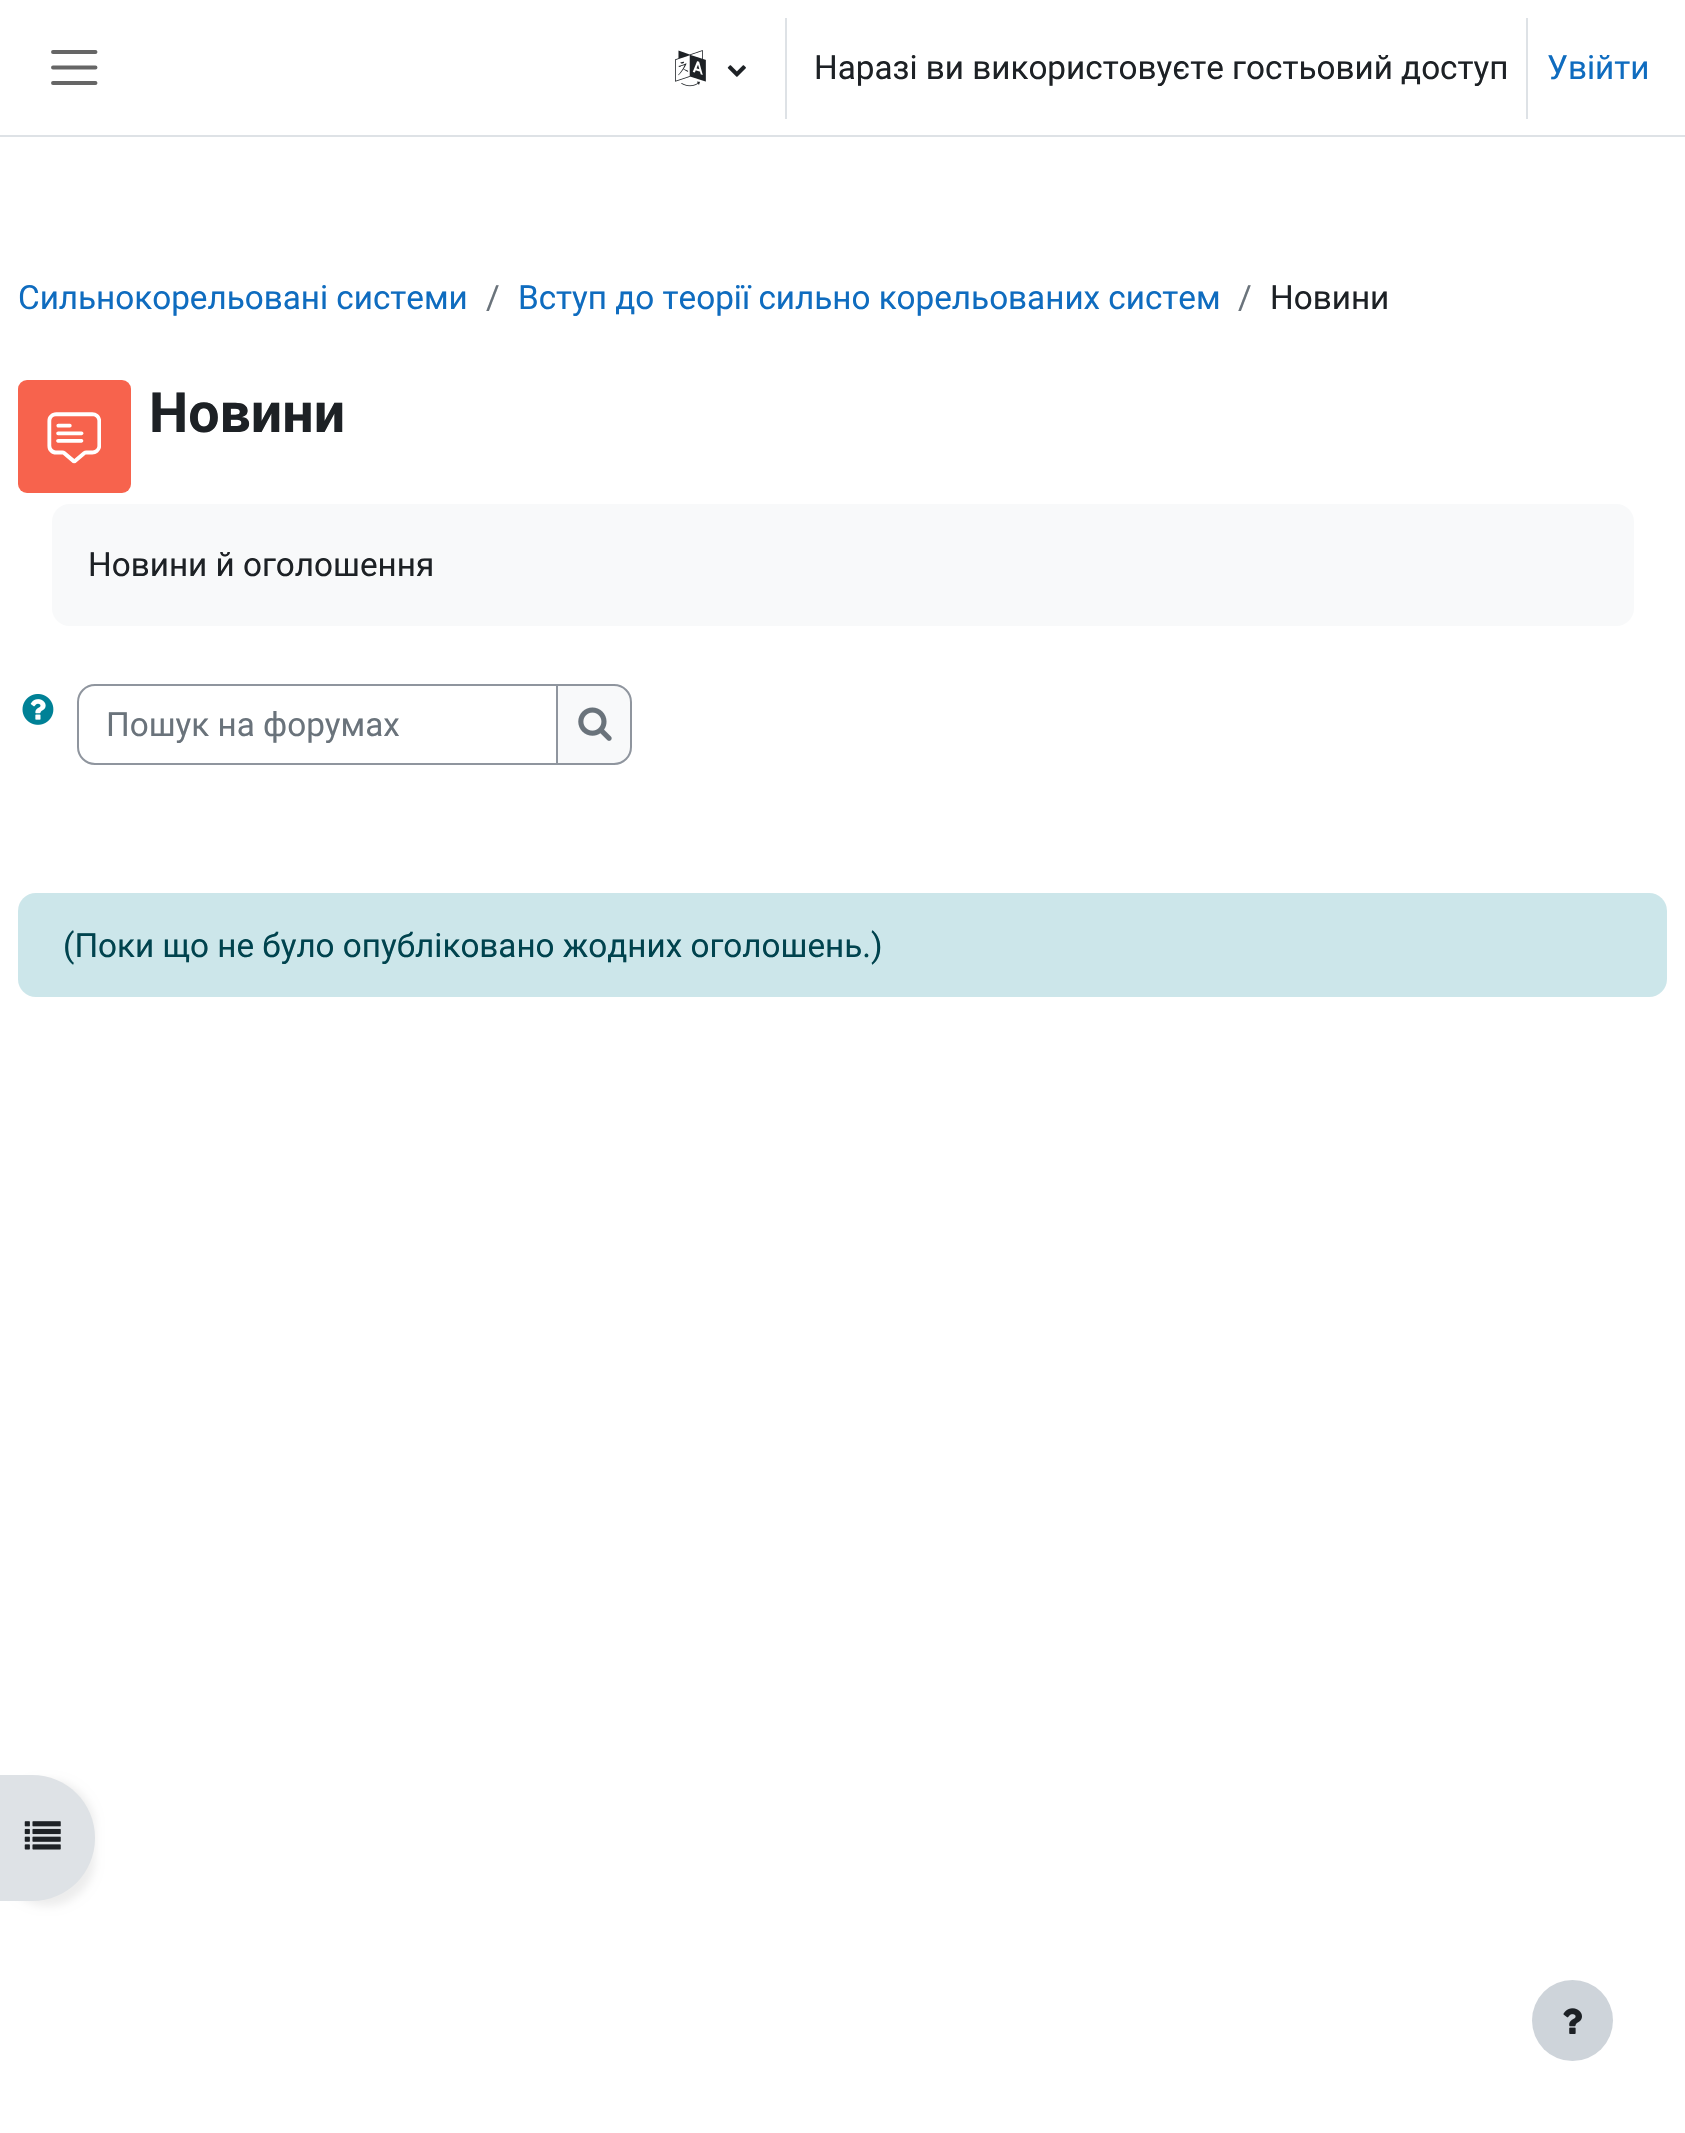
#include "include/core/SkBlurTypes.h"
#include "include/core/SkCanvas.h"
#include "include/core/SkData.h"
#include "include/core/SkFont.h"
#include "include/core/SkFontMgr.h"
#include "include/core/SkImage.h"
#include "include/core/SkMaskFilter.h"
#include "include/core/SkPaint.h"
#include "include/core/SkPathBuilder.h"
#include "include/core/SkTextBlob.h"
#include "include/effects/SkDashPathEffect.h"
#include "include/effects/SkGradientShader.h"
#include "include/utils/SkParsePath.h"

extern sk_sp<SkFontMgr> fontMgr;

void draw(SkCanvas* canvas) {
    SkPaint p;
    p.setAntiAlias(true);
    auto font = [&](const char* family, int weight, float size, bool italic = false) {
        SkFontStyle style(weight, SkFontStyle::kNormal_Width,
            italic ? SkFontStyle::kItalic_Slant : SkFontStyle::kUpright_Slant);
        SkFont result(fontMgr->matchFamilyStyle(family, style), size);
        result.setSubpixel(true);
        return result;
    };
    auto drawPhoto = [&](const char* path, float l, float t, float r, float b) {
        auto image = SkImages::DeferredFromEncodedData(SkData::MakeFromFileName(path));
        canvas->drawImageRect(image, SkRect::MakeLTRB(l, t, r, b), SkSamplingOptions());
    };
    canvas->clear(0xFFFFFFFF);
    p.setColor(0xFFDEE2E6);
    canvas->drawRect(SkRect::MakeLTRB(0, 135, 1685, 137), p);
    p.setStyle(SkPaint::kStroke_Style);
    p.setStrokeWidth(3.9f);
    p.setStrokeCap(SkPaint::kRound_Cap);
    p.setColor(0xFF666666);
    canvas->drawPath(SkPathBuilder().moveTo(53, 52).lineTo(95.5f, 52).moveTo(53, 67.5f).lineTo(95.5f, 67.5f).moveTo(53, 83).lineTo(95.5f, 83).detach(), p);
    drawPhoto("media/1.png", 675, 50, 706, 87);
    drawPhoto("media/2.png", 727, 65, 746, 77);
    p.setStyle(SkPaint::kFill_Style);
    p.setColor(0xFFDEE2E6);
    canvas->drawRect(SkRect::MakeLTRB(785, 18, 787, 119), p);
    auto font1 = font("Roboto", 400, 33.25f);
    p.setColor(0xFF1D2125);
    canvas->drawString("Наразі ви використовуєте гостьовий доступ", 814, 79, font1, p);
    p.setColor(0xFFDEE2E6);
    canvas->drawRect(SkRect::MakeLTRB(1526, 18, 1528, 119), p);
    p.setColor(0xFF0F6CBF);
    canvas->drawString("Увійти", 1547, 79, font1, p);
    canvas->drawString("Сильнокорельовані системи", 18, 309, font1, p);
    p.setColor(0xFF6A737B);
    canvas->drawString("/", 486, 309, font1, p);
    p.setColor(0xFF0F6CBF);
    canvas->drawString("Вступ до теорії сильно корельованих систем", 518, 309, font1, p);
    p.setColor(0xFF6A737B);
    canvas->drawString("/", 1238, 309, font1, p);
    p.setColor(0xFF1D2125);
    canvas->drawString("Новини", 1270, 309, font1, p);
    p.setColor(0xFFF7634D);
    canvas->drawRoundRect(SkRect::MakeLTRB(18, 380, 131, 493), 9, 9, p);
    drawPhoto("media/3.png", 47, 412, 101, 464);
    auto font2 = font("Roboto", 700, 55.5f);
    p.setColor(0xFF1D2125);
    canvas->drawString("Новини", 149, 432, font2, p);
    p.setColor(0xFFF8F9FA);
    canvas->drawRoundRect(SkRect::MakeLTRB(52, 504, 1634, 626), 18, 18, p);
    p.setColor(0xFF1D2125);
    canvas->drawString("Новини й оголошення", 88, 576, font1, p);
    drawPhoto("media/4.png", 22, 694, 54, 725);
    p.setStyle(SkPaint::kStroke_Style);
    p.setStrokeWidth(2);
    p.setStrokeCap(SkPaint::kButt_Cap);
    p.setColor(0xFF8F959E);
    canvas->drawPath(SkPathBuilder().moveTo(95, 685).lineTo(557, 685).lineTo(557, 764).lineTo(95, 764).cubicTo(85.5f, 764, 78, 756.5f, 78, 747).lineTo(78, 702).cubicTo(78, 692.5f, 85.5f, 685, 95, 685).close().detach(), p);
    p.setStyle(SkPaint::kFill_Style);
    p.setColor(0xFF6A737B);
    canvas->drawString("Пошук на форумах", 106, 736, font1, p);
    p.setColor(0xFFF8F9FA);
    canvas->drawPath(SkPathBuilder().moveTo(557, 685).lineTo(614, 685).cubicTo(623.5f, 685, 631, 692.5f, 631, 702).lineTo(631, 747).cubicTo(631, 756.5f, 623.5f, 764, 614, 764).lineTo(557, 764).close().detach(), p);
    p.setStyle(SkPaint::kStroke_Style);
    p.setColor(0xFF8F959E);
    canvas->drawPath(SkPathBuilder().moveTo(557, 685).lineTo(614, 685).cubicTo(623.5f, 685, 631, 692.5f, 631, 702).lineTo(631, 747).cubicTo(631, 756.5f, 623.5f, 764, 614, 764).lineTo(557, 764).close().detach(), p);
    drawPhoto("media/5.png", 578, 707, 612, 741);
    p.setStyle(SkPaint::kFill_Style);
    p.setColor(0xFFCCE6EA);
    canvas->drawRoundRect(SkRect::MakeLTRB(18, 893, 1667, 997), 18, 18, p);
    p.setColor(0xFF00434E);
    canvas->drawString("(Поки що не було опубліковано жодних оголошень.)", 63, 957, font1, p);
    p.setColor(0x12000000);
    p.setMaskFilter(SkMaskFilter::MakeBlur(kNormal_SkBlurStyle, 4.5f));
    canvas->drawRoundRect(SkRect::MakeLTRB(0, 1780, 95, 1906), 63, 63, p);
    p.setMaskFilter(nullptr);
    p.setColor(0xFFDEE2E6);
    canvas->drawPath(SkPathBuilder().moveTo(0, 1775).lineTo(32, 1775).cubicTo(67, 1775, 95, 1803, 95, 1838).cubicTo(95, 1873, 67, 1901, 32, 1901).lineTo(0, 1901).close().detach(), p);
    drawPhoto("media/6.png", 24, 1821, 61, 1850);
    p.setColor(0xFFCED4DA);
    canvas->drawCircle(1572.5f, 2020.5f, 40.5f, p);
    drawPhoto("media/7.png", 1563, 2008, 1582, 2034);
}
